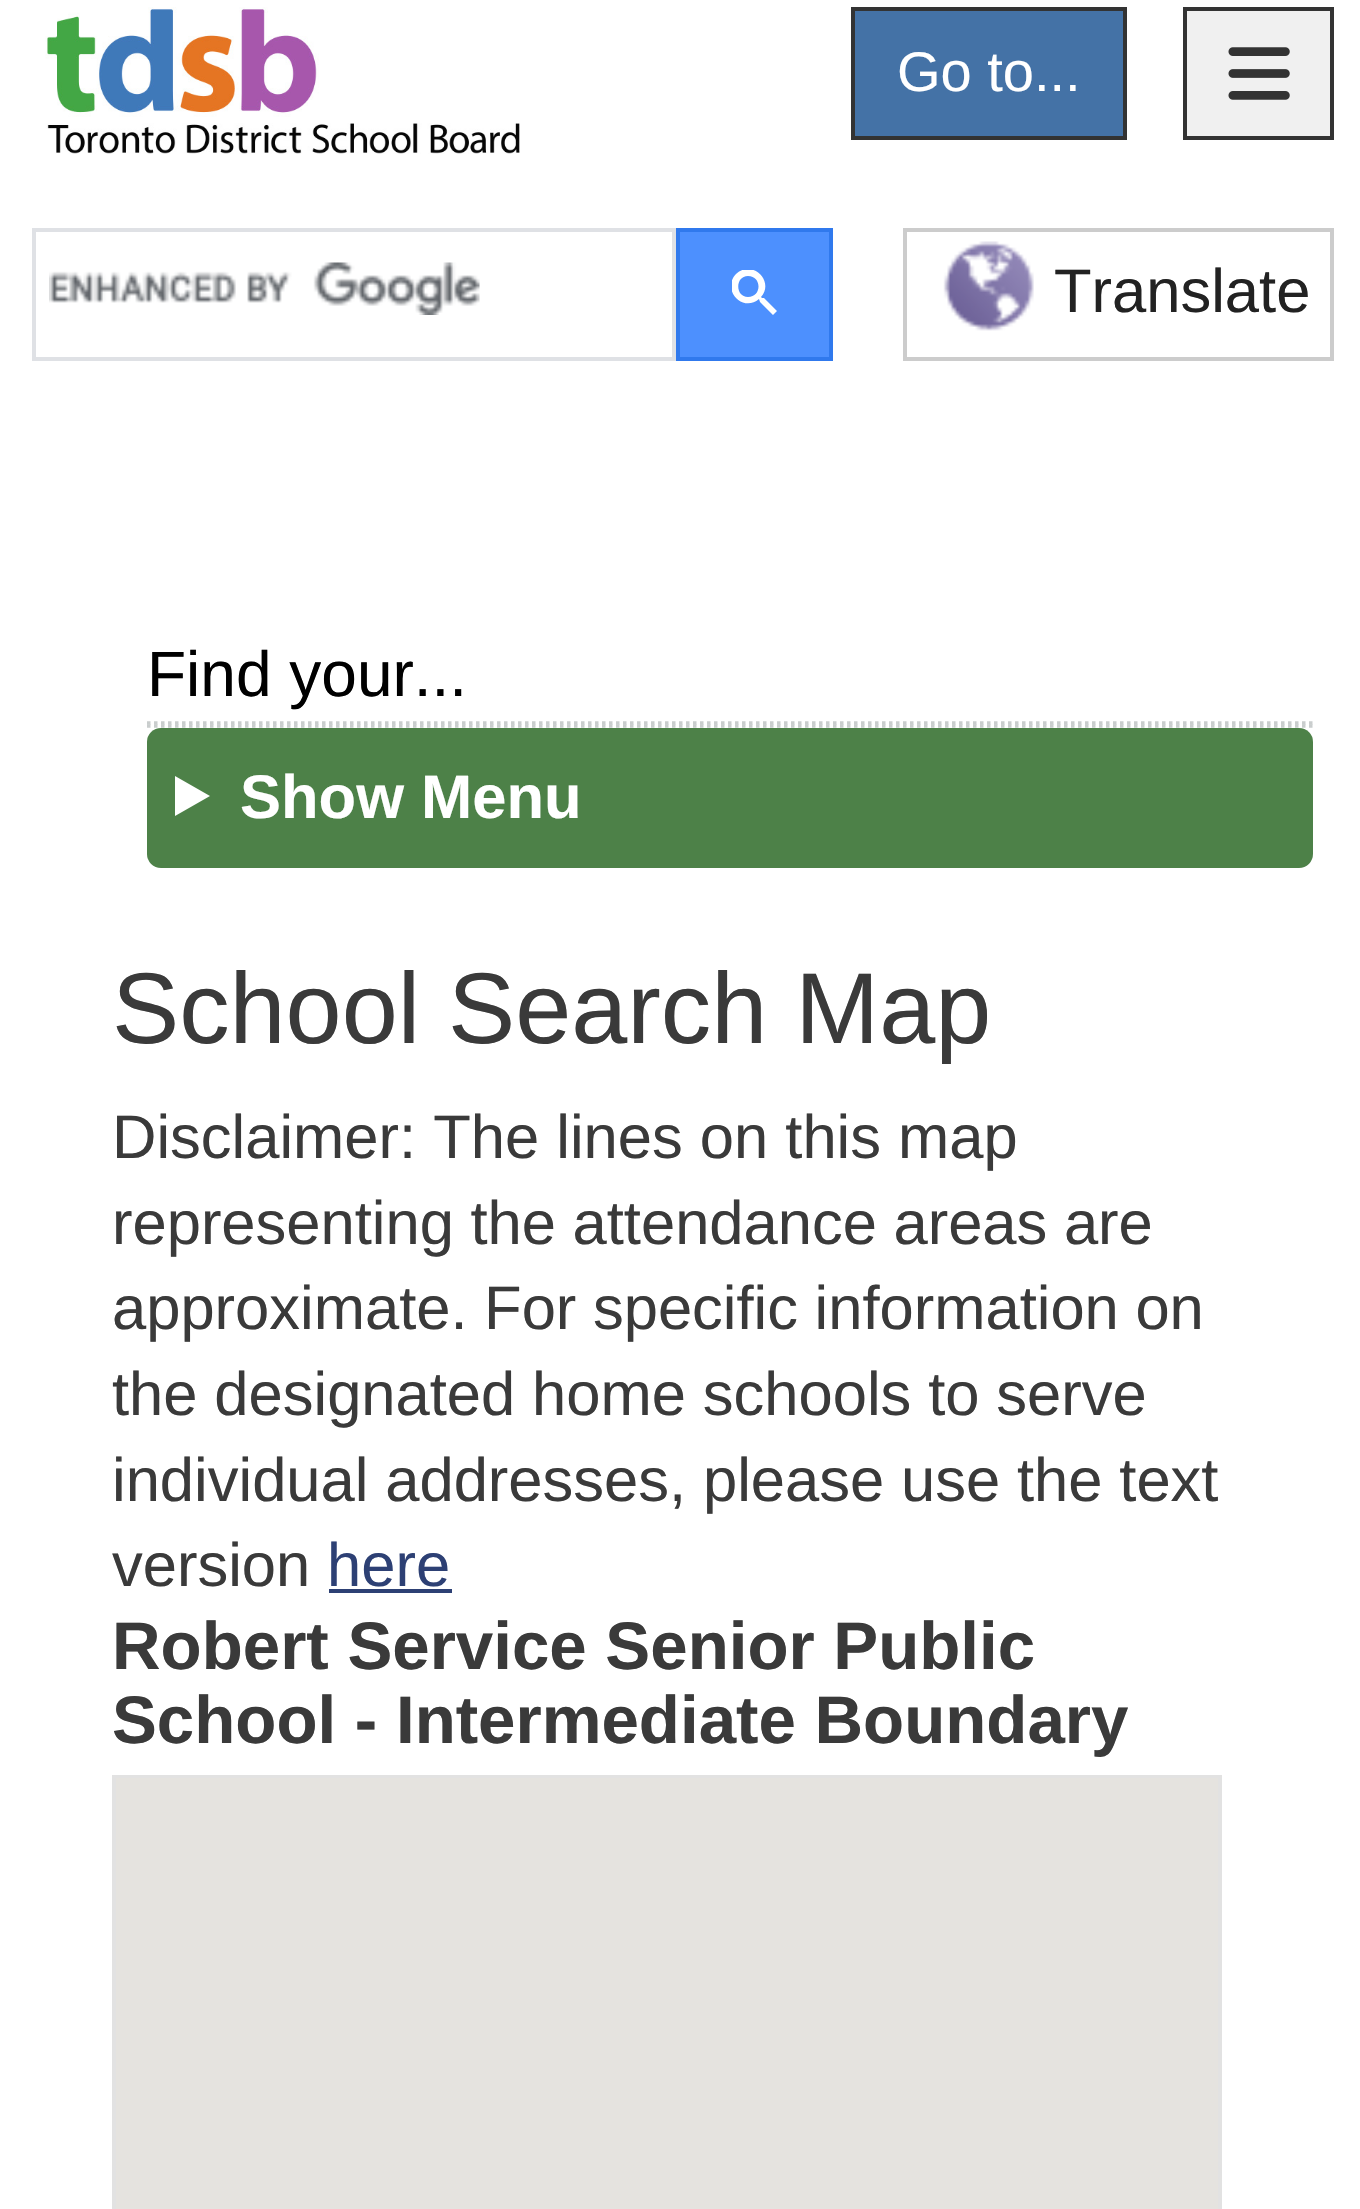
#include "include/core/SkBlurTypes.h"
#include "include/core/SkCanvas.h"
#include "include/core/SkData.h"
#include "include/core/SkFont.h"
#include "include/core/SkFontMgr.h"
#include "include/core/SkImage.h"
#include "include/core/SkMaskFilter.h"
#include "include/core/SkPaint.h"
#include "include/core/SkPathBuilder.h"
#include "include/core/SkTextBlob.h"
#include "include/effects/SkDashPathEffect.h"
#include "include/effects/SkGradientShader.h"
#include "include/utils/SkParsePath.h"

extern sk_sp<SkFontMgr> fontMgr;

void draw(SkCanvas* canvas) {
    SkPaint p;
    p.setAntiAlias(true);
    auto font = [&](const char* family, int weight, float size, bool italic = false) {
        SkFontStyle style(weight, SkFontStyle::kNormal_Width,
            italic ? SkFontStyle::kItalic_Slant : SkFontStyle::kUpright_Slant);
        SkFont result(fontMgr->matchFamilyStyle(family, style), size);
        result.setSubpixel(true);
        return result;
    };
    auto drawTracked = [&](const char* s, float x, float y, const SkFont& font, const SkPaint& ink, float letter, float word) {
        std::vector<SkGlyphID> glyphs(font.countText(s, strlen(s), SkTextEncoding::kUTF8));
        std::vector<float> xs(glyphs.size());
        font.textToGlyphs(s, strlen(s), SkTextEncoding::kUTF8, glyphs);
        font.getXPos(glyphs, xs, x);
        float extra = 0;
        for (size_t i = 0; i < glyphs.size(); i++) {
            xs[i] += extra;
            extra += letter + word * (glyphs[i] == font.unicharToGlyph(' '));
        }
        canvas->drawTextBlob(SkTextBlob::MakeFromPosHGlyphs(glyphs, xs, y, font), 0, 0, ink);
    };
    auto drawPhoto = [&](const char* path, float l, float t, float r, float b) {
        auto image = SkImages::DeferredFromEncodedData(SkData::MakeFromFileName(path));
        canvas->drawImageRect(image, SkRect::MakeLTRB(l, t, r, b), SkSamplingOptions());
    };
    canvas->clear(0xFFFFFFFF);
    drawPhoto("media/1.png", 45, 7, 520, 154);
    p.setColor(0xFF4472A6);
    canvas->drawRect(SkRect::MakeLTRB(853, 9, 1125, 138), p);
    p.setStyle(SkPaint::kStroke_Style);
    p.setStrokeWidth(4);
    p.setColor(0xFF333333);
    canvas->drawRect(SkRect::MakeLTRB(853, 9, 1125, 138), p);
    auto font1 = font("Liberation Sans", 400, 56);
    p.setStyle(SkPaint::kFill_Style);
    p.setColor(0xFFFFFFFF);
    canvas->drawString("Go to...", 897, 91, font1, p);
    p.setColor(0xFFF0F0F0);
    canvas->drawRect(SkRect::MakeLTRB(1185, 9, 1332, 138), p);
    p.setStyle(SkPaint::kStroke_Style);
    p.setColor(0xFF333333);
    canvas->drawRect(SkRect::MakeLTRB(1185, 9, 1332, 138), p);
    drawPhoto("media/2.png", 1228, 47, 1290, 100);
    p.setColor(0xFFDFE1E5);
    canvas->drawRect(SkRect::MakeLTRB(34, 230, 674, 359), p);
    drawPhoto("media/3.png", 49, 262, 480, 315);
    p.setStyle(SkPaint::kFill_Style);
    p.setColor(0xFF4D90FE);
    canvas->drawRect(SkRect::MakeLTRB(678, 230, 831, 359), p);
    p.setStyle(SkPaint::kStroke_Style);
    p.setColor(0xFF3079ED);
    canvas->drawRect(SkRect::MakeLTRB(678, 230, 831, 359), p);
    canvas->save();
    canvas->clipRect(SkRect::MakeLTRB(732, 270, 777, 315));
    p.setStyle(SkPaint::kFill_Style);
    p.setColor(0xFFFFFFFF);
    canvas->drawPath(SkPathBuilder().moveTo(748, 297).cubicTo(762, 297, 762, 276, 748, 276).cubicTo(735, 276, 735, 297, 748, 297).close().moveTo(764, 298).lineTo(777, 311).lineTo(773, 315).lineTo(760, 302).lineTo(759, 299).cubicTo(743, 313, 721, 290, 736, 274).cubicTo(752, 259, 775, 281, 761, 297).lineTo(762, 298).close().detach(), p);
    canvas->restore();
    p.setStyle(SkPaint::kStroke_Style);
    p.setColor(0xFFCCCCCC);
    canvas->drawRect(SkRect::MakeLTRB(905, 230, 1332, 359), p);
    drawPhoto("media/4.png", 943, 241, 1034, 331);
    auto font2 = font("Liberation Sans", 400, 61.5f);
    p.setStyle(SkPaint::kFill_Style);
    p.setColor(0xFF222222);
    canvas->drawString("Translate", 1054, 312, font2, p);
    p.setStyle(SkPaint::kStroke_Style);
    p.setStrokeWidth(3.5f);
    p.setColor(0xFFC9CDCD);
    p.setPathEffect(SkDashPathEffect::Make({{3.5f, 3.5f}}, 0));
    canvas->drawPath(SkPathBuilder().moveTo(147, 726).lineTo(1312.5f, 726).detach(), p);
    p.setPathEffect(nullptr);
    p.setPathEffect(SkDashPathEffect::Make({{3.5f, 3.5f}}, 0));
    canvas->drawPath(SkPathBuilder().moveTo(147, 723).lineTo(1312.5f, 723).detach(), p);
    p.setPathEffect(nullptr);
    auto font3 = font("Liberation Sans", 400, 64);
    p.setStyle(SkPaint::kFill_Style);
    p.setColor(0xFF000000);
    canvas->drawString("Find your...", 147, 696, font3, p);
    p.setColor(0xFF4D8148);
    canvas->drawRoundRect(SkRect::MakeLTRB(147, 728, 1313, 868), 14, 14, p);
    p.setColor(0xFFFFFFFF);
    canvas->drawPath(SkPathBuilder().moveTo(175, 776).lineTo(210, 796).lineTo(175, 816).close().detach(), p);
    auto font4 = font("Liberation Sans", 700, 61.5f);
    canvas->drawString("Show Menu", 240, 818, font4, p);
    auto font5 = font("Liberation Sans", 400, 100.75f);
    p.setColor(0xFF3A3A3A);
    canvas->drawString("School Search Map", 112, 1043, font5, p);
    canvas->drawString("Disclaimer: The lines on this map", 112, 1158, font2, p);
    drawTracked("representing the attendance areas are", 112, 1244, font2, p, 0, -0.5f);
    drawTracked("approximate. For specific information on", 112, 1329, font2, p, 0, -0.5f);
    drawTracked("the designated home schools to serve", 112, 1415, font2, p, 0, -0.25f);
    drawTracked("individual addresses, please use the text", 112, 1501, font2, p, 0, -0.25f);
    canvas->drawString("version", 112, 1586, font2, p);
    p.setColor(0xFF2D4074);
    canvas->drawString("here", 327, 1586, font2, p);
    canvas->drawRect(SkRect::MakeLTRB(329, 1589, 452, 1593), p);
    auto font6 = font("Liberation Sans", 700, 67.25f);
    p.setColor(0xFF3A3A3A);
    canvas->drawString("Robert Service Senior Public", 112, 1669, font6, p);
    canvas->drawString("School - Intermediate Boundary", 112, 1743, font6, p);
    p.setStyle(SkPaint::kStroke_Style);
    p.setStrokeWidth(4);
    p.setColor(0xFFE2E2E2);
    canvas->drawRect(SkRect::MakeLTRB(114, 1777, 1220, 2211), p);
    p.setStyle(SkPaint::kFill_Style);
    p.setColor(0xFFE5E3DF);
    canvas->drawRect(SkRect::MakeLTRB(116, 1778, 1218, 2209), p);
}
